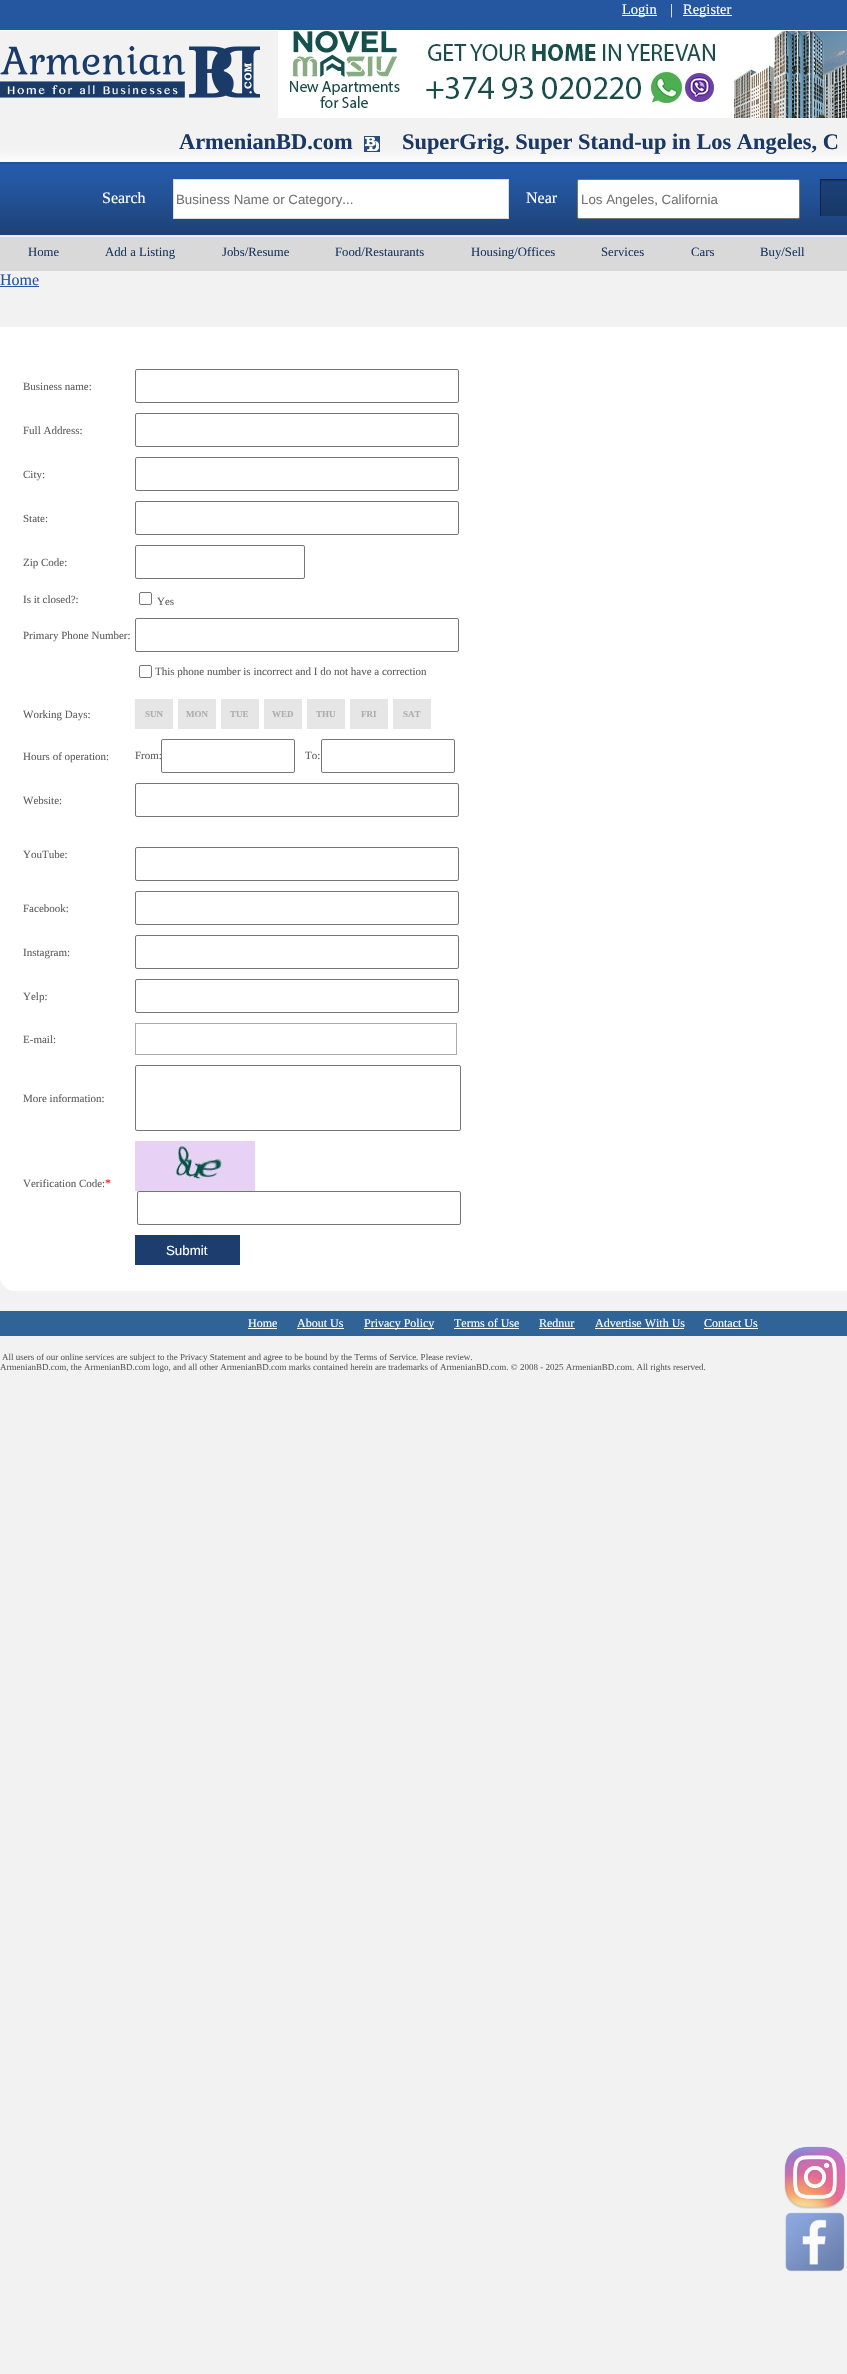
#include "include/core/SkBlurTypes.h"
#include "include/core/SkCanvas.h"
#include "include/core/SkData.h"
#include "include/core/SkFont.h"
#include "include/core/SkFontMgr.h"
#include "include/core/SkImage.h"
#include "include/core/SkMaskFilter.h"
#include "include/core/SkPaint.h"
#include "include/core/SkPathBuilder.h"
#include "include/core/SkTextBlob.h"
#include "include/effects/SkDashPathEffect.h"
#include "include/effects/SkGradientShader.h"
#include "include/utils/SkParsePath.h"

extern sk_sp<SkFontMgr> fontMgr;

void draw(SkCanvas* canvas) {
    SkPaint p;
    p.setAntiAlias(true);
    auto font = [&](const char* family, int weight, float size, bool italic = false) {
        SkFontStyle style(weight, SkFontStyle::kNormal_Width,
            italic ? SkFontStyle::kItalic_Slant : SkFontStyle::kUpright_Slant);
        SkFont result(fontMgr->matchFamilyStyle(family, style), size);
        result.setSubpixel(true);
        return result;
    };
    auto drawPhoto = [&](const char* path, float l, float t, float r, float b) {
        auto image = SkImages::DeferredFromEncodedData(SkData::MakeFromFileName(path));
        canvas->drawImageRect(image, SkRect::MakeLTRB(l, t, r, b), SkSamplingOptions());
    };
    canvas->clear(0xFFF2F2F2);
    {
        const struct { float l, t, r, b; SkColor color; } items[] = {
            {0, 0, 847, 30, 0xFF2457A0},
            {0, 30, 847, 31, 0xFFFFFFFF},
            {622, 15, 657, 16, 0xFFFFFFFF},
        };
        for (auto [l, t, r, b, color] : items) {
            p.setColor(color);
            canvas->drawRect(SkRect::MakeLTRB(l, t, r, b), p);
        }
    }
    auto font1 = font("Liberation Serif", 400, 14.5f);
    canvas->drawString("Login", 622, 14, font1, p);
    canvas->drawString("|", 670, 14, font1, p);
    canvas->drawRect(SkRect::MakeLTRB(683, 15, 732, 16), p);
    canvas->drawString("Register", 683, 14, font1, p);
    drawPhoto("media/1.png", 0, 46, 260, 98);
    drawPhoto("media/2.png", 278, 31, 847, 118);
    p.setMaskFilter(SkMaskFilter::MakeBlur(kNormal_SkBlurStyle, 5.5f));
    canvas->drawRect(SkRect::MakeLTRB(-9, 156, 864, 249), p);
    p.setMaskFilter(nullptr);
    auto font2 = font("Liberation Serif", 700, 22.4f);
    p.setColor(0xFF1A3864);
    canvas->drawString("ArmenianBD.com", 179, 149, font2, p);
    drawPhoto("media/3.png", 364, 136, 380, 152);
    canvas->drawString("SuperGrig. Super Stand-up in Los Angeles, C", 402, 149, font2, p);
    drawPhoto("media/4.png", 0, 164, 847, 235);
    p.setColor(0xFF215299);
    canvas->drawRect(SkRect::MakeLTRB(0, 162, 847, 164), p);
    p.setColor(0xFFEFEFEF);
    canvas->drawRect(SkRect::MakeLTRB(0, 235, 847, 237), p);
    auto font3 = font("Liberation Serif", 400, 16);
    p.setColor(0xFFFFFFFF);
    canvas->drawString("Search", 102, 203, font3, p);
    canvas->drawRect(SkRect::MakeLTRB(173.5f, 179.5f, 508.5f, 218.5f), p);
    p.setStyle(SkPaint::kStroke_Style);
    p.setStrokeWidth(1);
    p.setColor(0xFFD8DBDF);
    canvas->drawRect(SkRect::MakeLTRB(173.5f, 179.5f, 508.5f, 218.5f), p);
    auto font4 = font("Liberation Sans", 400, 13.3f);
    p.setStyle(SkPaint::kFill_Style);
    p.setColor(0xFF757575);
    canvas->drawString("Business Name or Category...", 176, 204, font4, p);
    p.setColor(0xFFFFFFFF);
    canvas->drawString("Near", 526, 203, font3, p);
    canvas->drawRoundRect(SkRect::MakeLTRB(577.5f, 179.5f, 799.5f, 218.5f), 1.5f, 1.5f, p);
    p.setStyle(SkPaint::kStroke_Style);
    p.setColor(0xFF767676);
    canvas->drawRoundRect(SkRect::MakeLTRB(577.5f, 179.5f, 799.5f, 218.5f), 1.5f, 1.5f, p);
    p.setStyle(SkPaint::kFill_Style);
    p.setColor(0xFF757575);
    canvas->drawString("Los Angeles, California", 581, 204, font4, p);
    drawPhoto("media/5.png", 821, 180, 847, 215);
    {
        const struct { float l, t, r, b; SkColor color; } items[] = {
            {820, 179, 847, 180, 0xFF102545},
            {820, 215, 847, 216, 0xFF183868},
            {820, 179, 821, 216, 0xFF102545},
            {0, 237, 847, 271, 0xFFD9D9D9},
        };
        for (auto [l, t, r, b, color] : items) {
            p.setColor(color);
            canvas->drawRect(SkRect::MakeLTRB(l, t, r, b), p);
        }
    }
    auto font5 = font("Liberation Serif", 400, 12.75f);
    p.setColor(0xFF1A3864);
    {
        const struct { const char* s; float x, y; } items[] = {
            {"Home", 28, 256},
            {"Add a Listing", 105, 256},
            {"Jobs/Resume", 222, 256},
            {"Food/Restaurants", 335, 256},
            {"Housing/Offices", 471, 256},
            {"Services", 601, 256},
            {"Cars", 691, 256},
            {"Buy/Sell", 760, 256},
        };
        for (auto [s, x, y] : items) {
            canvas->drawString(s, x, y, font5, p);
        }
    }
    p.setColor(0xFF2457A0);
    canvas->drawString("Home", 0, 285, font3, p);
    canvas->drawRect(SkRect::MakeLTRB(0, 286, 39, 287), p);
    p.setColor(0xFFFFFFFF);
    canvas->drawPath(SkPathBuilder().moveTo(0, 327).lineTo(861, 327).lineTo(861, 1277).cubicTo(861, 1284.5f, 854.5f, 1291, 847, 1291).lineTo(14, 1291).cubicTo(6.5f, 1291, 0, 1284.5f, 0, 1277).close().detach(), p);
    auto font6 = font("Liberation Serif", 400, 11);
    p.setColor(0xFF5F5F5F);
    canvas->drawString("Business name:", 23, 390, font6, p);
    p.setStyle(SkPaint::kStroke_Style);
    p.setColor(0xFF767676);
    canvas->drawRoundRect(SkRect::MakeLTRB(135.5f, 369.5f, 458.5f, 402.5f), 1.5f, 1.5f, p);
    p.setStyle(SkPaint::kFill_Style);
    p.setColor(0xFF5F5F5F);
    canvas->drawString("Full Address:", 23, 434, font6, p);
    p.setStyle(SkPaint::kStroke_Style);
    p.setColor(0xFF767676);
    canvas->drawRoundRect(SkRect::MakeLTRB(135.5f, 413.5f, 458.5f, 446.5f), 1.5f, 1.5f, p);
    p.setStyle(SkPaint::kFill_Style);
    p.setColor(0xFF5F5F5F);
    canvas->drawString("City:", 23, 478, font6, p);
    p.setStyle(SkPaint::kStroke_Style);
    p.setColor(0xFF767676);
    canvas->drawRoundRect(SkRect::MakeLTRB(135.5f, 457.5f, 458.5f, 490.5f), 1.5f, 1.5f, p);
    p.setStyle(SkPaint::kFill_Style);
    p.setColor(0xFF5F5F5F);
    canvas->drawString("State:", 23, 522, font6, p);
    p.setStyle(SkPaint::kStroke_Style);
    p.setColor(0xFF767676);
    canvas->drawRoundRect(SkRect::MakeLTRB(135.5f, 501.5f, 458.5f, 534.5f), 1.5f, 1.5f, p);
    p.setStyle(SkPaint::kFill_Style);
    p.setColor(0xFF5F5F5F);
    canvas->drawString("Zip Code:", 23, 566, font6, p);
    p.setStyle(SkPaint::kStroke_Style);
    p.setColor(0xFF767676);
    canvas->drawRoundRect(SkRect::MakeLTRB(135.5f, 545.5f, 304.5f, 578.5f), 1.5f, 1.5f, p);
    p.setStyle(SkPaint::kFill_Style);
    p.setColor(0xFF5F5F5F);
    canvas->drawString("Is it closed?:", 23, 603, font6, p);
    p.setStyle(SkPaint::kStroke_Style);
    p.setColor(0xFF767676);
    canvas->drawRoundRect(SkRect::MakeLTRB(139.5f, 592.5f, 151.5f, 604.5f), 1.5f, 1.5f, p);
    p.setStyle(SkPaint::kFill_Style);
    p.setColor(0xFF5F5F5F);
    canvas->drawString("Yes", 157, 605, font6, p);
    canvas->drawString("Primary Phone Number:", 23, 639, font6, p);
    p.setStyle(SkPaint::kStroke_Style);
    p.setColor(0xFF767676);
    canvas->drawRoundRect(SkRect::MakeLTRB(135.5f, 618.5f, 458.5f, 651.5f), 1.5f, 1.5f, p);
    canvas->drawRoundRect(SkRect::MakeLTRB(139.5f, 665.5f, 151.5f, 677.5f), 1.5f, 1.5f, p);
    p.setStyle(SkPaint::kFill_Style);
    p.setColor(0xFF5F5F5F);
    canvas->drawString("This phone number is incorrect and I do not have a correction", 155, 675, font6, p);
    canvas->drawString("Working Days:", 23, 718, font6, p);
    p.setColor(0xFFE6E6E6);
    canvas->drawRect(SkRect::MakeLTRB(135, 699, 173, 729), p);
    auto font7 = font("Liberation Serif", 700, 9);
    p.setColor(0xFFADADAD);
    canvas->drawString("SUN", 145, 717, font7, p);
    p.setColor(0xFFE6E6E6);
    canvas->drawRect(SkRect::MakeLTRB(178, 699, 216, 729), p);
    p.setColor(0xFFADADAD);
    canvas->drawString("MON", 186, 717, font7, p);
    p.setColor(0xFFE6E6E6);
    canvas->drawRect(SkRect::MakeLTRB(221, 699, 259, 729), p);
    p.setColor(0xFFADADAD);
    canvas->drawString("TUE", 230, 717, font7, p);
    p.setColor(0xFFE6E6E6);
    canvas->drawRect(SkRect::MakeLTRB(264, 699, 302, 729), p);
    p.setColor(0xFFADADAD);
    canvas->drawString("WED", 272, 717, font7, p);
    p.setColor(0xFFE6E6E6);
    canvas->drawRect(SkRect::MakeLTRB(307, 699, 345, 729), p);
    p.setColor(0xFFADADAD);
    canvas->drawString("THU", 316, 717, font7, p);
    p.setColor(0xFFE6E6E6);
    canvas->drawRect(SkRect::MakeLTRB(350, 699, 388, 729), p);
    p.setColor(0xFFADADAD);
    canvas->drawString("FRI", 361, 717, font7, p);
    p.setColor(0xFFE6E6E6);
    canvas->drawRect(SkRect::MakeLTRB(393, 699, 431, 729), p);
    p.setColor(0xFFADADAD);
    canvas->drawString("SAT", 403, 717, font7, p);
    p.setColor(0xFF5F5F5F);
    canvas->drawString("Hours of operation:", 23, 760, font6, p);
    canvas->drawString("From:", 135, 759, font6, p);
    p.setStyle(SkPaint::kStroke_Style);
    p.setColor(0xFF767676);
    canvas->drawRoundRect(SkRect::MakeLTRB(161.5f, 739.5f, 294.5f, 772.5f), 1.5f, 1.5f, p);
    p.setStyle(SkPaint::kFill_Style);
    p.setColor(0xFF5F5F5F);
    canvas->drawString("To:", 305, 759, font6, p);
    p.setStyle(SkPaint::kStroke_Style);
    p.setColor(0xFF767676);
    canvas->drawRoundRect(SkRect::MakeLTRB(321.5f, 739.5f, 454.5f, 772.5f), 1.5f, 1.5f, p);
    p.setStyle(SkPaint::kFill_Style);
    p.setColor(0xFF5F5F5F);
    canvas->drawString("Website:", 23, 804, font6, p);
    p.setStyle(SkPaint::kStroke_Style);
    p.setColor(0xFF767676);
    canvas->drawRoundRect(SkRect::MakeLTRB(135.5f, 783.5f, 458.5f, 816.5f), 1.5f, 1.5f, p);
    p.setStyle(SkPaint::kFill_Style);
    p.setColor(0xFF5F5F5F);
    canvas->drawString("YouTube:", 23, 858, font6, p);
    p.setStyle(SkPaint::kStroke_Style);
    p.setColor(0xFF767676);
    canvas->drawRoundRect(SkRect::MakeLTRB(135.5f, 847.5f, 458.5f, 880.5f), 1.5f, 1.5f, p);
    p.setStyle(SkPaint::kFill_Style);
    p.setColor(0xFF5F5F5F);
    canvas->drawString("Facebook:", 23, 912, font6, p);
    p.setStyle(SkPaint::kStroke_Style);
    p.setColor(0xFF767676);
    canvas->drawRoundRect(SkRect::MakeLTRB(135.5f, 891.5f, 458.5f, 924.5f), 1.5f, 1.5f, p);
    p.setStyle(SkPaint::kFill_Style);
    p.setColor(0xFF5F5F5F);
    canvas->drawString("Instagram:", 23, 956, font6, p);
    p.setStyle(SkPaint::kStroke_Style);
    p.setColor(0xFF767676);
    canvas->drawRoundRect(SkRect::MakeLTRB(135.5f, 935.5f, 458.5f, 968.5f), 1.5f, 1.5f, p);
    p.setStyle(SkPaint::kFill_Style);
    p.setColor(0xFF5F5F5F);
    canvas->drawString("Yelp:", 23, 1000, font6, p);
    p.setStyle(SkPaint::kStroke_Style);
    p.setColor(0xFF767676);
    canvas->drawRoundRect(SkRect::MakeLTRB(135.5f, 979.5f, 458.5f, 1012.5f), 1.5f, 1.5f, p);
    p.setStyle(SkPaint::kFill_Style);
    p.setColor(0xFF5F5F5F);
    canvas->drawString("E-mail:", 23, 1043, font6, p);
    p.setStyle(SkPaint::kStroke_Style);
    p.setColor(0xFFAFABAB);
    canvas->drawRect(SkRect::MakeLTRB(135.5f, 1023.5f, 456.5f, 1054.5f), p);
    p.setStyle(SkPaint::kFill_Style);
    p.setColor(0xFF5F5F5F);
    canvas->drawString("More information:", 23, 1102, font6, p);
    p.setStyle(SkPaint::kStroke_Style);
    p.setColor(0xFF767676);
    canvas->drawRoundRect(SkRect::MakeLTRB(135.5f, 1065.5f, 460.5f, 1130.5f), 1.5f, 1.5f, p);
    p.setStyle(SkPaint::kFill_Style);
    p.setColor(0xFF5F5F5F);
    canvas->drawString("Verification Code:", 23, 1187, font6, p);
    auto font8 = font("Liberation Serif", 400, 12);
    p.setColor(0xFFFF0000);
    canvas->drawString("*", 105, 1187, font8, p);
    drawPhoto("media/6.png", 135, 1141, 255, 1191);
    p.setStyle(SkPaint::kStroke_Style);
    p.setColor(0xFF767676);
    canvas->drawRoundRect(SkRect::MakeLTRB(137.5f, 1191.5f, 460.5f, 1224.5f), 1.5f, 1.5f, p);
    p.setStyle(SkPaint::kFill_Style);
    p.setColor(0xFF1C3D6D);
    canvas->drawRect(SkRect::MakeLTRB(135, 1235, 240, 1265), p);
    p.setColor(0xFFFFFFFF);
    canvas->drawString("Submit", 166, 1255, font4, p);
    p.setColor(0xFF306496);
    canvas->drawRect(SkRect::MakeLTRB(0, 1311, 847, 1336), p);
    p.setColor(0xFFFFFFFF);
    canvas->drawString("Home", 248, 1327, font8, p);
    canvas->drawRect(SkRect::MakeLTRB(248, 1328, 277, 1329), p);
    canvas->drawString("About Us", 297, 1327, font8, p);
    canvas->drawRect(SkRect::MakeLTRB(297, 1328, 344, 1329), p);
    canvas->drawRect(SkRect::MakeLTRB(364, 1328, 434, 1329), p);
    canvas->drawString("Privacy Policy", 364, 1327, font8, p);
    canvas->drawString("Terms of Use", 454, 1327, font8, p);
    canvas->drawRect(SkRect::MakeLTRB(454, 1328, 519, 1329), p);
    canvas->drawString("Rednur", 539, 1327, font8, p);
    canvas->drawRect(SkRect::MakeLTRB(539, 1328, 575, 1329), p);
    canvas->drawString("Advertise With Us", 595, 1327, font8, p);
    canvas->drawRect(SkRect::MakeLTRB(595, 1328, 684, 1329), p);
    canvas->drawString("Contact Us", 704, 1327, font8, p);
    canvas->drawRect(SkRect::MakeLTRB(704, 1328, 758, 1329), p);
    auto font9 = font("Liberation Serif", 400, 9);
    p.setColor(0xFF5F5F5F);
    canvas->drawString("All users of our online services are subject to the Privacy Statement and agree to be bound by the Terms of Service. Please review.", 2, 1360, font9, p);
    canvas->drawString("ArmenianBD.com, the ArmenianBD.com logo, and all other ArmenianBD.com marks contained herein are trademarks of ArmenianBD.com. © 2008 - 2025 ArmenianBD.com. All rights reserved.", 0, 1370, font9, p);
    drawPhoto("media/7.png", 784, 2146, 846, 2209);
    drawPhoto("media/8.png", 785, 2212, 845, 2272);
}
